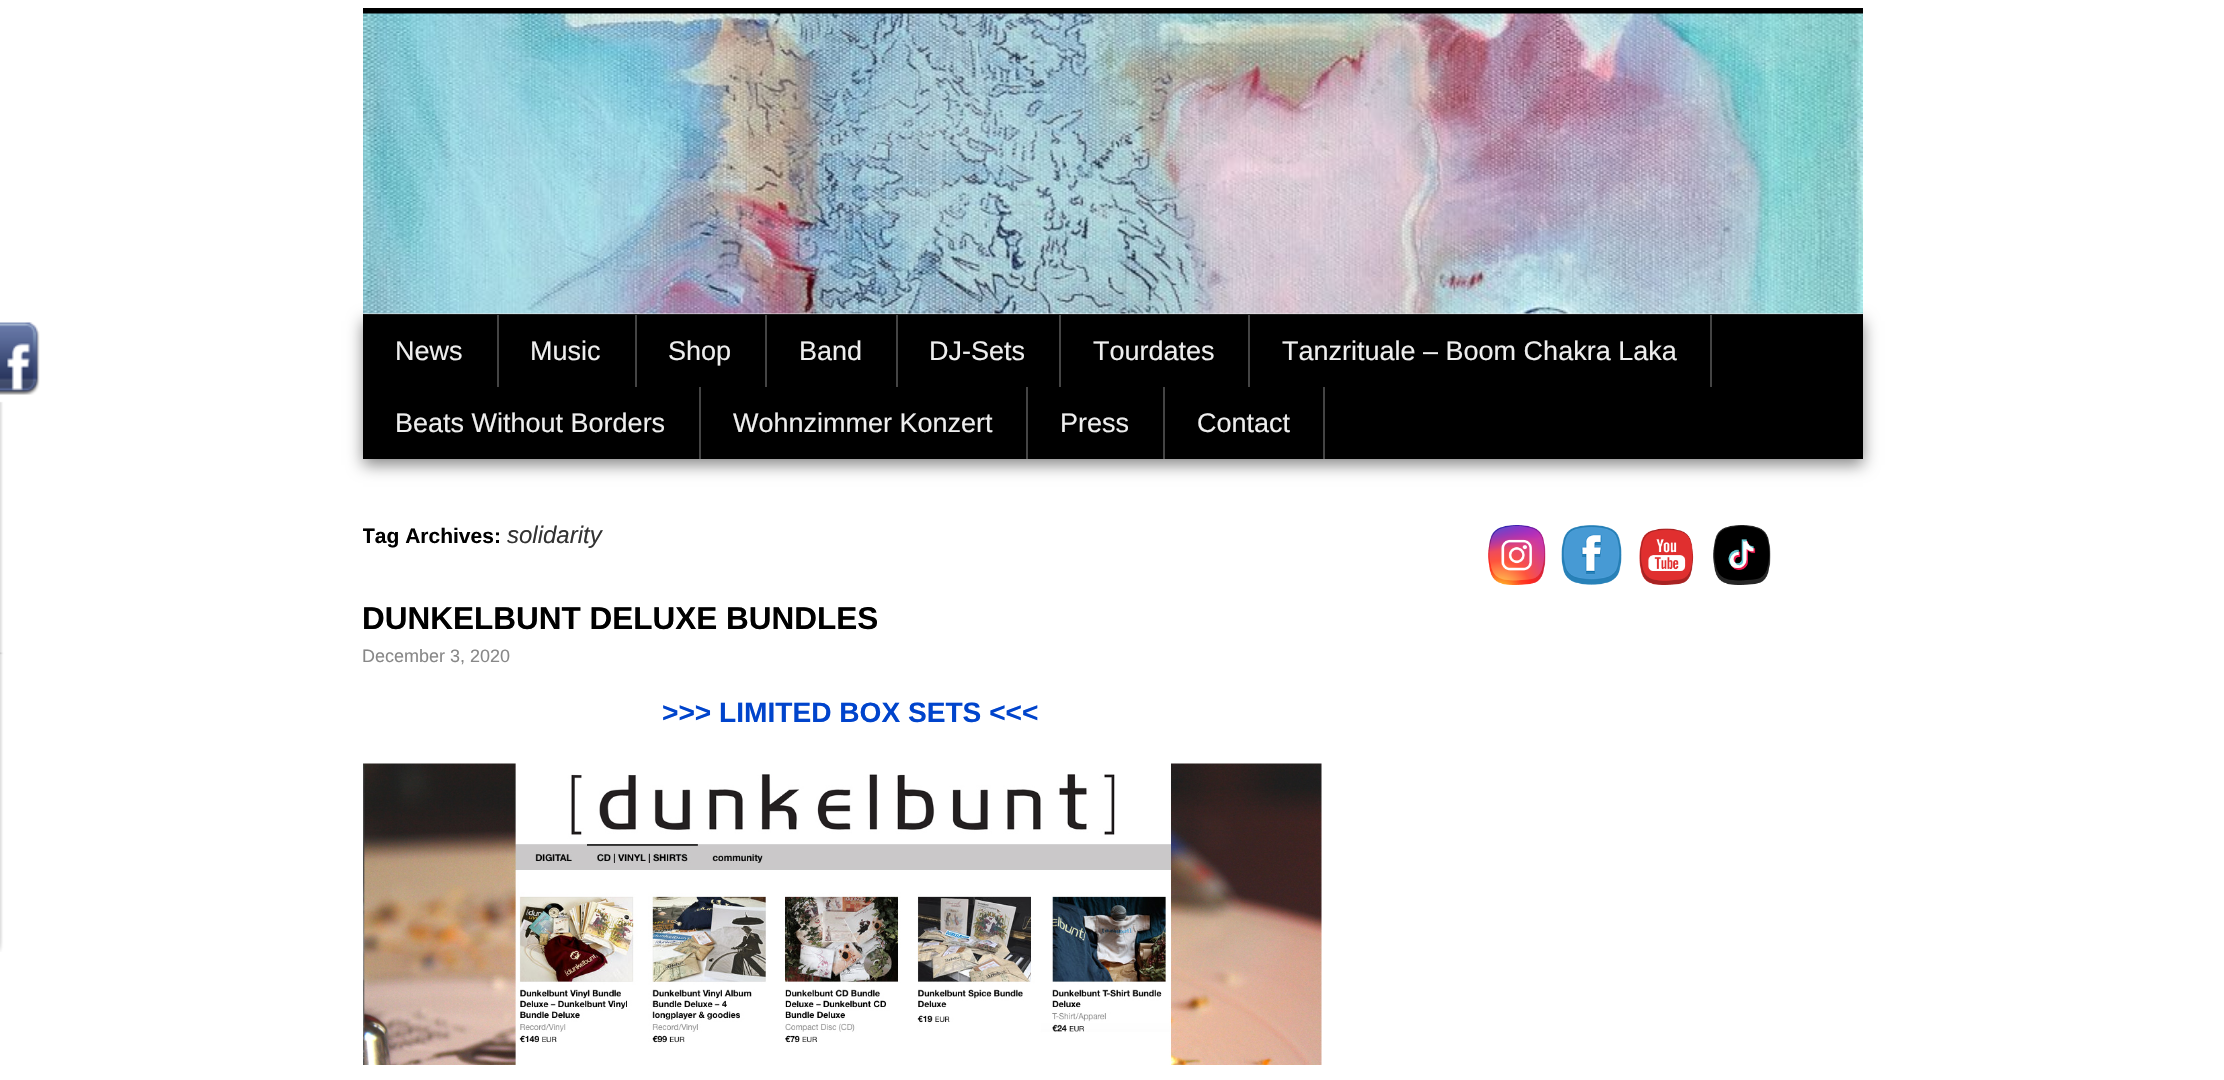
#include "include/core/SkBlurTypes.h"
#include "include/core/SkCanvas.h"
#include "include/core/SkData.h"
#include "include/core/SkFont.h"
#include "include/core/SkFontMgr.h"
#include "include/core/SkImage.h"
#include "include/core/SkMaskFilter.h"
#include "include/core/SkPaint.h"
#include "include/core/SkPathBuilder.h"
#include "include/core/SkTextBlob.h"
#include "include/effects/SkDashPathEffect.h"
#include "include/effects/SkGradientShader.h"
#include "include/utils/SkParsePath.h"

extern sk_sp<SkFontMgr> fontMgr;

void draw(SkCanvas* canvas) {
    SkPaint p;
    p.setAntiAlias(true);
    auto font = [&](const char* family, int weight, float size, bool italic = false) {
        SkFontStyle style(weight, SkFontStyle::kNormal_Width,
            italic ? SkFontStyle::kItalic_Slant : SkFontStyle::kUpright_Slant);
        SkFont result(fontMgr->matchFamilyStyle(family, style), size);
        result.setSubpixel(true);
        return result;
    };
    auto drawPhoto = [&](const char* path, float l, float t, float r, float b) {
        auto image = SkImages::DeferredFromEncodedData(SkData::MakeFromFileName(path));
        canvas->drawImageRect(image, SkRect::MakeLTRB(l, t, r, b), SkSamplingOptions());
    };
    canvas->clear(0xFFFFFFFF);
    drawPhoto("media/1.png", 0, 322, 40, 952);
    p.setColor(0xFF000000);
    canvas->drawRect(SkRect::MakeLTRB(363, 8, 1863, 14), p);
    canvas->drawRect(SkRect::MakeLTRB(363, 314, 1863, 315), p);
    p.setColor(0xFF888888);
    p.setMaskFilter(SkMaskFilter::MakeBlur(kNormal_SkBlurStyle, 7.5f));
    canvas->drawRect(SkRect::MakeLTRB(363, 321, 1863, 465), p);
    p.setMaskFilter(nullptr);
    drawPhoto("media/2.png", 363, 13, 1863, 314);
    p.setColor(0xFF000000);
    canvas->drawRect(SkRect::MakeLTRB(363, 315, 1863, 459), p);
    p.setColor(0xFF444444);
    canvas->drawRect(SkRect::MakeLTRB(497, 315, 499, 387), p);
    auto font1 = font("Liberation Sans", 400, 27);
    p.setColor(0xFFEEEEEE);
    canvas->drawString("News", 395, 360, font1, p);
    p.setColor(0xFF444444);
    canvas->drawRect(SkRect::MakeLTRB(635, 315, 637, 387), p);
    p.setColor(0xFFEEEEEE);
    canvas->drawString("Music", 530, 360, font1, p);
    p.setColor(0xFF444444);
    canvas->drawRect(SkRect::MakeLTRB(765, 315, 767, 387), p);
    p.setColor(0xFFEEEEEE);
    canvas->drawString("Shop", 668, 360, font1, p);
    p.setColor(0xFF444444);
    canvas->drawRect(SkRect::MakeLTRB(896, 315, 898, 387), p);
    p.setColor(0xFFEEEEEE);
    canvas->drawString("Band", 799, 360, font1, p);
    p.setColor(0xFF444444);
    canvas->drawRect(SkRect::MakeLTRB(1059, 315, 1061, 387), p);
    p.setColor(0xFFEEEEEE);
    canvas->drawString("DJ-Sets", 929, 360, font1, p);
    p.setColor(0xFF444444);
    canvas->drawRect(SkRect::MakeLTRB(1248, 315, 1250, 387), p);
    p.setColor(0xFFEEEEEE);
    canvas->drawString("Tourdates", 1093, 360, font1, p);
    p.setColor(0xFF444444);
    canvas->drawRect(SkRect::MakeLTRB(1710, 315, 1712, 387), p);
    p.setColor(0xFFEEEEEE);
    canvas->drawString("Tanzrituale – Boom Chakra Laka", 1282, 360, font1, p);
    p.setColor(0xFF444444);
    canvas->drawRect(SkRect::MakeLTRB(699, 387, 701, 459), p);
    p.setColor(0xFFEEEEEE);
    canvas->drawString("Beats Without Borders", 395, 432, font1, p);
    p.setColor(0xFF444444);
    canvas->drawRect(SkRect::MakeLTRB(1026, 387, 1028, 459), p);
    p.setColor(0xFFEEEEEE);
    canvas->drawString("Wohnzimmer Konzert", 733, 432, font1, p);
    p.setColor(0xFF444444);
    canvas->drawRect(SkRect::MakeLTRB(1163, 387, 1165, 459), p);
    p.setColor(0xFFEEEEEE);
    canvas->drawString("Press", 1060, 432, font1, p);
    p.setColor(0xFF444444);
    canvas->drawRect(SkRect::MakeLTRB(1323, 387, 1325, 459), p);
    p.setColor(0xFFEEEEEE);
    canvas->drawString("Contact", 1197, 432, font1, p);
    canvas->save();
    canvas->clipRect(SkRect::MakeLTRB(363, 459, 1863, 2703));
    auto font2 = font("Liberation Sans", 700, 21);
    p.setColor(0xFF000000);
    canvas->drawString("Tag Archives:", 362, 543, font2, p);
    canvas->restore();
    auto font3 = font("Liberation Sans", 400, 24, true);
    p.setColor(0xFF333333);
    canvas->drawString("solidarity", 507, 543, font3, p);
    auto font4 = font("Liberation Sans", 700, 31.5f);
    p.setColor(0xFF000000);
    canvas->drawString("DUNKELBUNT DELUXE BUNDLES", 362, 629, font4, p);
    auto font5 = font("Liberation Sans", 400, 18);
    p.setColor(0xFF888888);
    canvas->drawString("December 3, 2020", 362, 662, font5, p);
    auto font6 = font("Liberation Sans", 700, 28.1f);
    p.setColor(0xFF0044CC);
    canvas->drawString(">>> LIMITED BOX SETS <<<", 662, 722, font6, p);
    drawPhoto("media/3.png", 363, 763, 1322, 1065);
    drawPhoto("media/4.png", 1488, 525, 1546, 585);
    drawPhoto("media/5.png", 1561, 525, 1622, 585);
    drawPhoto("media/6.png", 1639, 528, 1694, 585);
    drawPhoto("media/7.png", 1713, 525, 1771, 585);
}
